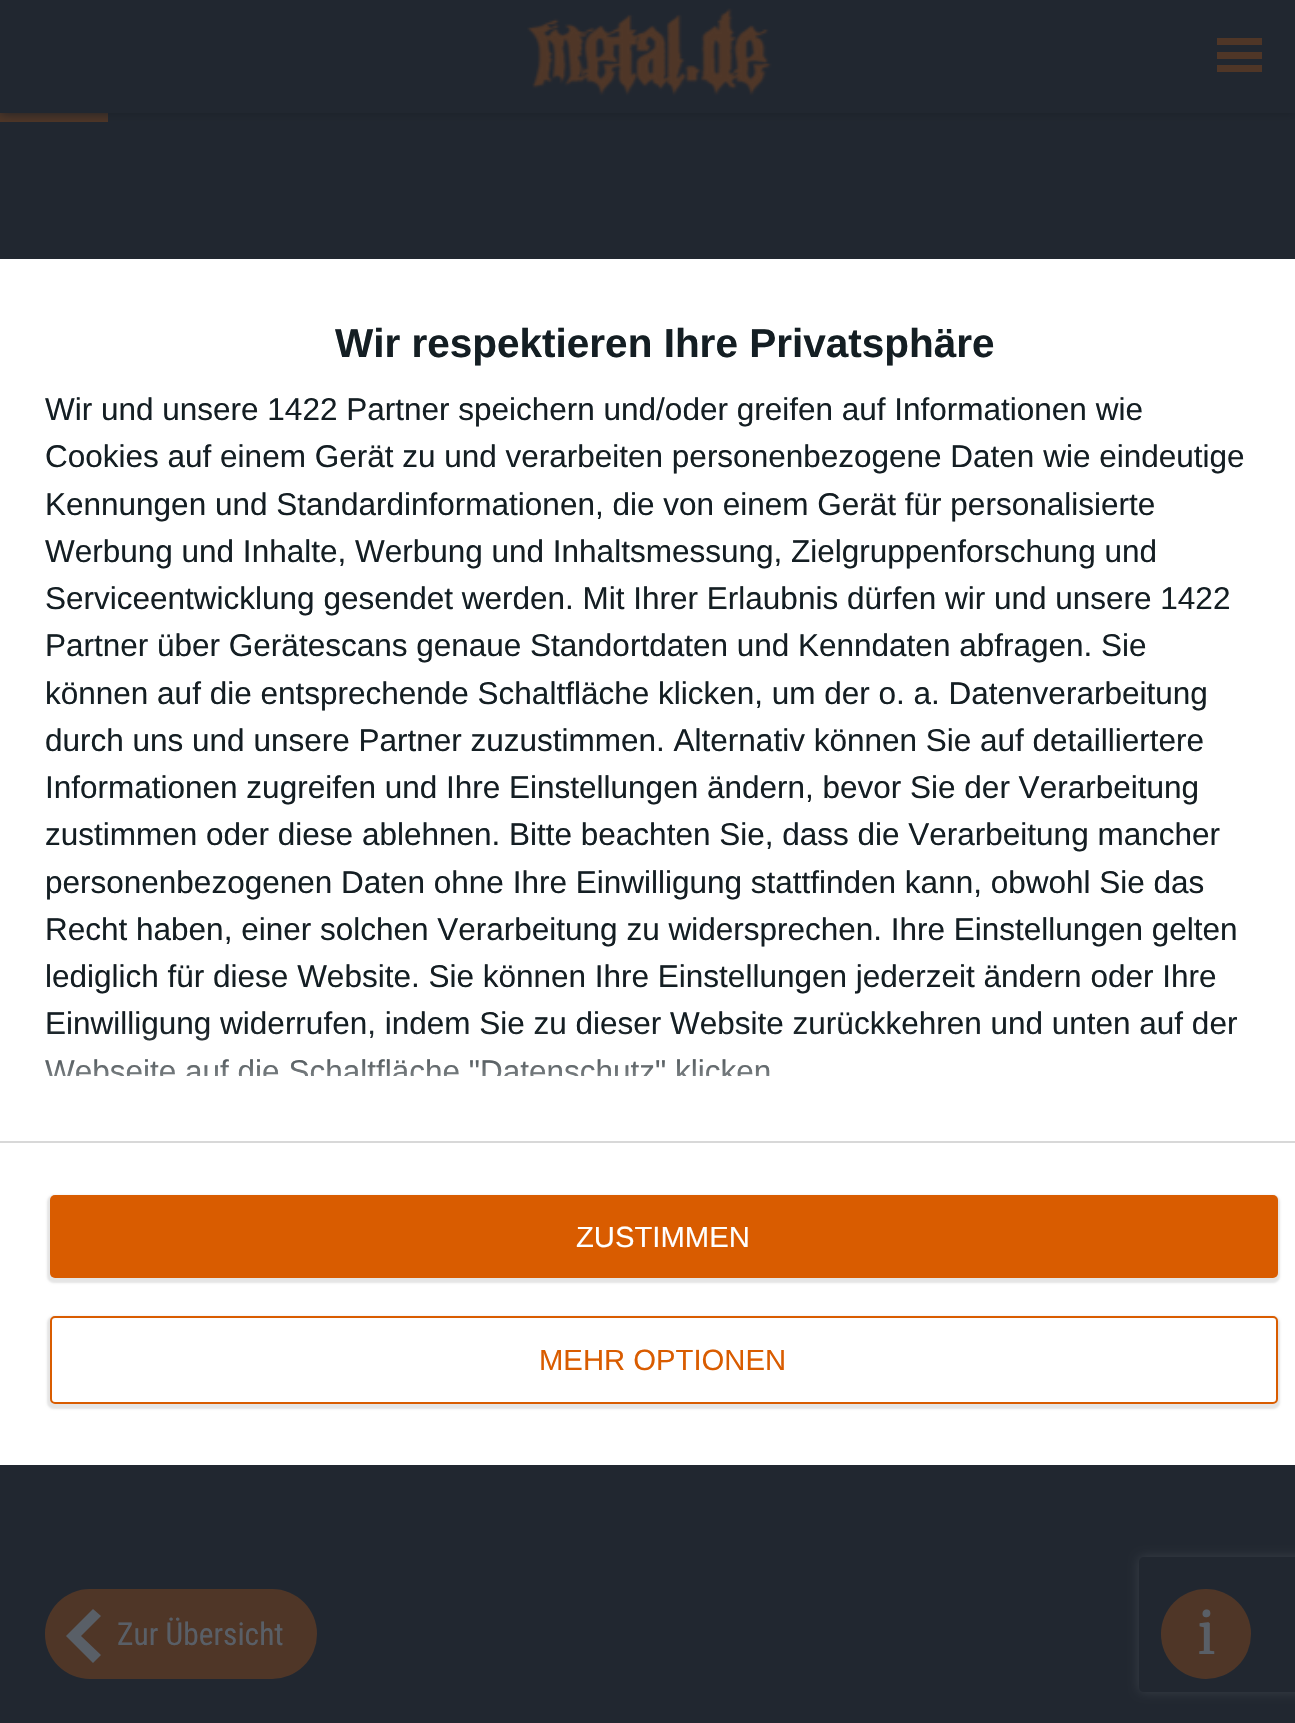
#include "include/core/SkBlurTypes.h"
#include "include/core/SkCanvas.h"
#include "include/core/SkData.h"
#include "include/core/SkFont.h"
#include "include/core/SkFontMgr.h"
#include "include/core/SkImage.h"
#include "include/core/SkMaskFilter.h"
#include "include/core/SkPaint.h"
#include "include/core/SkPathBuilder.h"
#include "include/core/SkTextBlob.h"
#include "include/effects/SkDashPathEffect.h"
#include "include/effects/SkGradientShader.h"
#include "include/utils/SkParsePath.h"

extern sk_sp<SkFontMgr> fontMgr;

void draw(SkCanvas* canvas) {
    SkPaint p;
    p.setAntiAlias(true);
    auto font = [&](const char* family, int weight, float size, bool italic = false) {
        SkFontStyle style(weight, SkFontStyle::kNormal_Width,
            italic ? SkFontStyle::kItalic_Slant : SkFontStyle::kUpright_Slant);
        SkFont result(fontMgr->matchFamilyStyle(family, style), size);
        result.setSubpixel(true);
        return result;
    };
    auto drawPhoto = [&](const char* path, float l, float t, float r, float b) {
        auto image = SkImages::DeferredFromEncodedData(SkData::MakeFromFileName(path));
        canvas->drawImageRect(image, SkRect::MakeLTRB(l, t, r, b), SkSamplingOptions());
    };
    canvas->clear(0xFF212730);
    p.setColor(0xFF4F3627);
    canvas->drawRect(SkRect::MakeLTRB(0, 113, 108, 122), p);
    p.setColor(0xFF191F27);
    p.setMaskFilter(SkMaskFilter::MakeBlur(kNormal_SkBlurStyle, 5.5f));
    canvas->drawRect(SkRect::MakeLTRB(0, 0, 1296, 113), p);
    p.setMaskFilter(nullptr);
    p.setColor(0xFF212730);
    canvas->drawRect(SkRect::MakeLTRB(0, 0, 1295, 113), p);
    drawPhoto("media/1.png", 527, 8, 772, 96);
    {
        const struct { float l, t, r, b; SkColor color; } items[] = {
            {1217, 52, 1262, 59, 0xFF4F3627},
            {1217, 38, 1262, 45, 0xFF4F3627},
            {1217, 65, 1262, 72, 0xFF4F3627},
            {0, 259, 1295, 1465, 0xFFFFFFFF},
        };
        for (auto [l, t, r, b, color] : items) {
            p.setColor(color);
            canvas->drawRect(SkRect::MakeLTRB(l, t, r, b), p);
        }
    }
    auto font1 = font("Liberation Sans", 700, 40.5f);
    p.setColor(0xFF141E23);
    canvas->drawString("Wir respektieren Ihre Privatsphäre", 335, 357, font1, p);
    auto font2 = font("Liberation Sans", 400, 31.5f);
    {
        const struct { const char* s; float x, y; } items[] = {
            {"Wir und unsere 1422 Partner speichern und/oder greifen auf Informationen wie", 45, 420},
            {"Cookies auf einem Gerät zu und verarbeiten personenbezogene Daten wie eindeutige", 45, 467},
            {"Kennungen und Standardinformationen, die von einem Gerät für personalisierte", 45, 515},
            {"Werbung und Inhalte, Werbung und Inhaltsmessung, Zielgruppenforschung und", 45, 562},
            {"Serviceentwicklung gesendet werden. Mit Ihrer Erlaubnis dürfen wir und unsere 1422", 45, 609},
            {"Partner über Gerätescans genaue Standortdaten und Kenndaten abfragen. Sie", 45, 656},
            {"können auf die entsprechende Schaltfläche klicken, um der o. a. Datenverarbeitung", 45, 704},
            {"durch uns und unsere Partner zuzustimmen. Alternativ können Sie auf detailliertere", 45, 751},
            {"Informationen zugreifen und Ihre Einstellungen ändern, bevor Sie der Verarbeitung", 45, 798},
            {"zustimmen oder diese ablehnen. Bitte beachten Sie, dass die Verarbeitung mancher", 45, 845},
            {"personenbezogenen Daten ohne Ihre Einwilligung stattfinden kann, obwohl Sie das", 45, 893},
            {"Recht haben, einer solchen Verarbeitung zu widersprechen. Ihre Einstellungen gelten", 45, 940},
            {"lediglich für diese Website. Sie können Ihre Einstellungen jederzeit ändern oder Ihre", 45, 987},
            {"Einwilligung widerrufen, indem Sie zu dieser Website zurückkehren und unten auf der", 45, 1034},
        };
        for (auto [s, x, y] : items) {
            canvas->drawString(s, x, y, font2, p);
        }
    }
    canvas->save();
    canvas->clipRect(SkRect::MakeLTRB(45, 387, 1251, 1076));
    canvas->drawString("Webseite auf die Schaltfläche \"Datenschutz\" klicken", 45, 1082, font2, p);
    canvas->restore();
    p.setColor(0xFFD8D8D8);
    canvas->drawRect(SkRect::MakeLTRB(0, 1141, 1295, 1143), p);
    {
        const SkColor colors[] = {0xFFFFFFFF, 0x00FFFFFF};
        const float stops[] = {0, 1};
        const SkPoint ends[] = {{648, 1141}, {648, 1028}};
        p.setShader(SkGradientShader::MakeLinear(ends, colors, stops, 2, SkTileMode::kClamp));
        p.setAlpha(255);
    }
    canvas->drawRect(SkRect::MakeLTRB(45, 1030, 1232, 1076), p);
    p.setShader(nullptr);
    p.setColor(0x1A000000);
    p.setMaskFilter(SkMaskFilter::MakeBlur(kNormal_SkBlurStyle, 1));
    canvas->drawRoundRect(SkRect::MakeLTRB(47, 1195, 1280, 1283), 7, 7, p);
    p.setMaskFilter(nullptr);
    p.setColor(0xFFD95C00);
    canvas->drawRoundRect(SkRect::MakeLTRB(50, 1195, 1278, 1278), 5, 5, p);
    auto font3 = font("Liberation Sans", 400, 29.25f);
    p.setColor(0xFFFFFFFF);
    canvas->drawString("ZUSTIMMEN", 576, 1247, font3, p);
    p.setColor(0x1A000000);
    p.setMaskFilter(SkMaskFilter::MakeBlur(kNormal_SkBlurStyle, 1));
    canvas->drawRoundRect(SkRect::MakeLTRB(47, 1316, 1280, 1409), 7, 7, p);
    p.setMaskFilter(nullptr);
    p.setColor(0xFFFFFFFF);
    canvas->drawRoundRect(SkRect::MakeLTRB(51, 1317, 1277, 1403), 4, 4, p);
    p.setStyle(SkPaint::kStroke_Style);
    p.setStrokeWidth(2);
    p.setColor(0xFFD95C00);
    canvas->drawRoundRect(SkRect::MakeLTRB(51, 1317, 1277, 1403), 4, 4, p);
    p.setStyle(SkPaint::kFill_Style);
    canvas->drawString("MEHR OPTIONEN", 539, 1370, font3, p);
    canvas->save();
    canvas->clipPath(SkPathBuilder(SkPathFillType::kEvenOdd).moveTo(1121, 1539).lineTo(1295, 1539).lineTo(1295, 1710).lineTo(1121, 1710).close().moveTo(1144, 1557).lineTo(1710, 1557).cubicTo(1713, 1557, 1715, 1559, 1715, 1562).lineTo(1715, 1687).cubicTo(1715, 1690, 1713, 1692, 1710, 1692).lineTo(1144, 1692).cubicTo(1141, 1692, 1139, 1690, 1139, 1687).lineTo(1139, 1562).cubicTo(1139, 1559, 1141, 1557, 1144, 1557).close().detach(), true);
    p.setColor(0xFF393F47);
    p.setMaskFilter(SkMaskFilter::MakeBlur(kNormal_SkBlurStyle, 5.5f));
    canvas->drawRoundRect(SkRect::MakeLTRB(1139, 1557, 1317, 1692), 5, 5, p);
    p.setMaskFilter(nullptr);
    canvas->restore();
    p.setColor(0xFF4F3627);
    canvas->drawRoundRect(SkRect::MakeLTRB(45, 1589, 317, 1679), 45, 45, p);
    p.setColor(0xFF595F67);
    canvas->drawPath(SkPathBuilder().moveTo(93, 1609).lineTo(66, 1636).lineTo(93, 1663).lineTo(101, 1655).lineTo(81, 1636).lineTo(101, 1616).close().detach(), p);
    auto font4 = font("Roboto Condensed", 400, 31.5f);
    canvas->drawString("Zur Übersicht", 117, 1645, font4, p);
    p.setColor(0xFF4F3627);
    canvas->drawCircle(1206, 1634, 45, p);
    auto font5 = font("Merriweather", 400, 56);
    p.setColor(0xFF595F67);
    canvas->drawString("i", 1197, 1654, font5, p);
}
